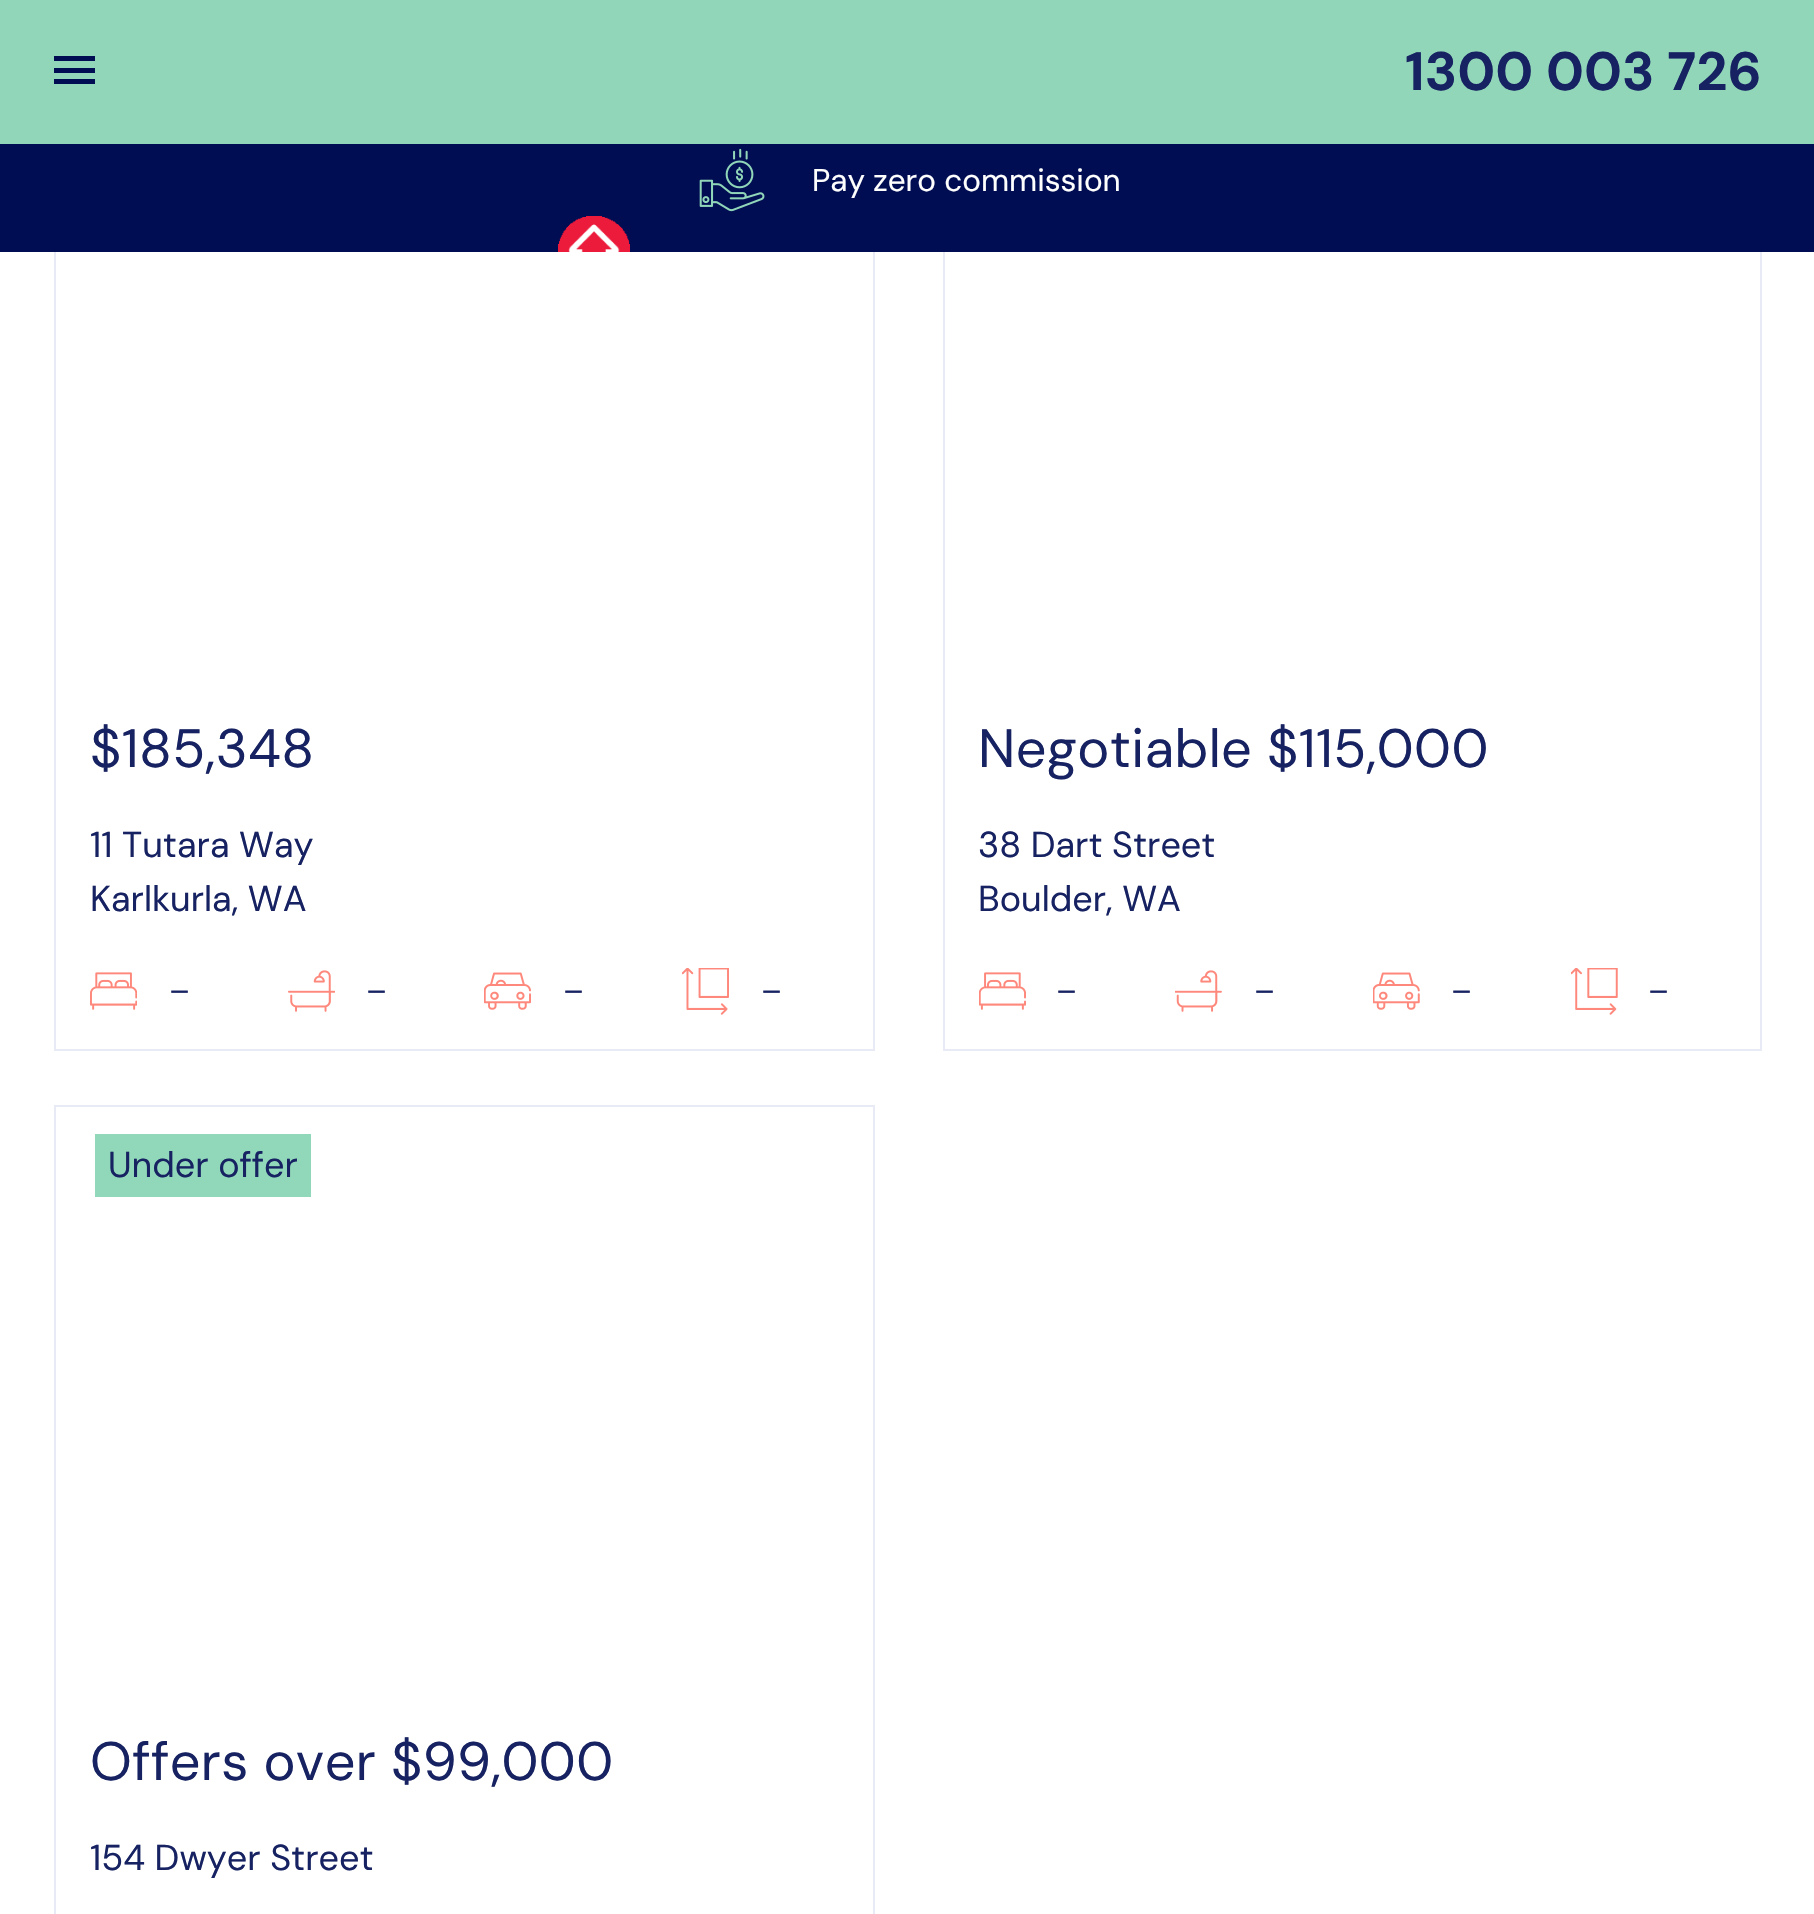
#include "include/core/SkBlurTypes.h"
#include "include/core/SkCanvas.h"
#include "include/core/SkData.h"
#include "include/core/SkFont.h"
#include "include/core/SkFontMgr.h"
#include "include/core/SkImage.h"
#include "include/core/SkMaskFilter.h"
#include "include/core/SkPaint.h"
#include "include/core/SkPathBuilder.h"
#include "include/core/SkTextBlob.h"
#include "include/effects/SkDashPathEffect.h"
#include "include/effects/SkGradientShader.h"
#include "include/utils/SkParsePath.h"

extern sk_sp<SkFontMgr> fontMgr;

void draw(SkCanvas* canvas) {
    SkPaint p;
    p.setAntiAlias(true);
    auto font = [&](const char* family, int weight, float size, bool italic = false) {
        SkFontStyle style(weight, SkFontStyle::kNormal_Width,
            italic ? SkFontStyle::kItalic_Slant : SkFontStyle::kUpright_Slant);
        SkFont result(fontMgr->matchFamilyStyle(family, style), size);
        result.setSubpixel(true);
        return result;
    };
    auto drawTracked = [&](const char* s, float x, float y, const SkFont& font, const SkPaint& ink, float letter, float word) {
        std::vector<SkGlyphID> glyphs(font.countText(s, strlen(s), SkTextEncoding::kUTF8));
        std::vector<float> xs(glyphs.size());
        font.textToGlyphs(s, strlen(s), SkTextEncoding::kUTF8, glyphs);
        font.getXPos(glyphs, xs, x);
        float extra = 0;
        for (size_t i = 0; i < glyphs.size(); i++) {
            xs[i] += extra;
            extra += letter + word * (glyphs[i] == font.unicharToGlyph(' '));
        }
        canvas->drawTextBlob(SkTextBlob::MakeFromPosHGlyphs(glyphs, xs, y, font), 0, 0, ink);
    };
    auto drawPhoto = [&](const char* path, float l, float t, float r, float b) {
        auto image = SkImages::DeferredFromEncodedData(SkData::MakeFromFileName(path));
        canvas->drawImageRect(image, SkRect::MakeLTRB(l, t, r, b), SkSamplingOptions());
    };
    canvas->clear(0xFFFFFFFF);
    p.setStyle(SkPaint::kStroke_Style);
    p.setStrokeWidth(2);
    p.setColor(0xFFE8EAF6);
    canvas->drawRect(SkRect::MakeLTRB(55, 93, 874, 1050), p);
    canvas->drawRect(SkRect::MakeLTRB(944, 93, 1761, 1050), p);
    p.setStyle(SkPaint::kFill_Style);
    {
        const struct { float l, t, r, b; SkColor color; } items[] = {
            {0, 0, 1814, 144, 0xFF91D6B9},
            {54, 68, 95, 73, 0xFF000D52},
            {54, 56, 95, 61, 0xFF000D52},
            {54, 79, 95, 84, 0xFF000D52},
        };
        for (auto [l, t, r, b, color] : items) {
            p.setColor(color);
            canvas->drawRect(SkRect::MakeLTRB(l, t, r, b), p);
        }
    }
    auto font1 = font("DM Sans", 700, 54);
    p.setColor(0xFF162261);
    canvas->drawString("1300 003 726", 1405, 90, font1, p);
    p.setColor(0xFF000D52);
    canvas->drawRect(SkRect::MakeLTRB(0, 144, 1814, 252), p);
    drawPhoto("media/1.png", 699, 148, 765, 212);
    auto font2 = font("DM Sans", 400, 31.5f);
    p.setColor(0xFFFFFFFF);
    canvas->drawString("Pay zero commission", 812, 191, font2, p);
    drawPhoto("media/2.png", 558, 216, 630, 252);
    auto font3 = font("DM Sans", 400, 54);
    p.setColor(0xFF162261);
    drawTracked("$185,348", 90, 767, font3, p, 0.4f, 0);
    auto font4 = font("DM Sans", 400, 36);
    canvas->drawString("11 Tutara Way", 90, 857, font4, p);
    canvas->drawString("Karlkurla, WA", 90, 911, font4, p);
    drawPhoto("media/3.png", 90, 972, 137, 1010);
    canvas->drawString("–", 169, 1001, font2, p);
    drawPhoto("media/4.png", 288, 970, 335, 1012);
    canvas->drawString("–", 366, 1001, font2, p);
    drawPhoto("media/5.png", 484, 972, 531, 1010);
    canvas->drawString("–", 563, 1001, font2, p);
    drawPhoto("media/6.png", 682, 968, 729, 1015);
    canvas->drawString("–", 761, 1001, font2, p);
    drawTracked("Negotiable $115,000", 978, 767, font3, p, 0.4f, 0);
    canvas->drawString("38 Dart Street", 978, 857, font4, p);
    canvas->drawString("Boulder, WA", 978, 911, font4, p);
    drawPhoto("media/7.png", 979, 972, 1026, 1010);
    canvas->drawString("–", 1056, 1001, font2, p);
    drawPhoto("media/8.png", 1175, 970, 1222, 1012);
    canvas->drawString("–", 1254, 1001, font2, p);
    drawPhoto("media/9.png", 1373, 972, 1420, 1010);
    canvas->drawString("–", 1451, 1001, font2, p);
    drawPhoto("media/10.png", 1571, 968, 1618, 1015);
    canvas->drawString("–", 1648, 1001, font2, p);
    p.setStyle(SkPaint::kStroke_Style);
    p.setColor(0xFFE8EAF6);
    canvas->drawRect(SkRect::MakeLTRB(55, 1106, 874, 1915), p);
    p.setStyle(SkPaint::kFill_Style);
    p.setColor(0xFF91D7B9);
    canvas->drawRect(SkRect::MakeLTRB(95, 1134, 311, 1197), p);
    p.setColor(0xFF162261);
    canvas->drawString("Under offer", 108, 1177, font4, p);
    drawTracked("Offers over $99,000", 90, 1780, font3, p, 0.4f, 0);
    canvas->drawString("154 Dwyer Street", 90, 1870, font4, p);
}
